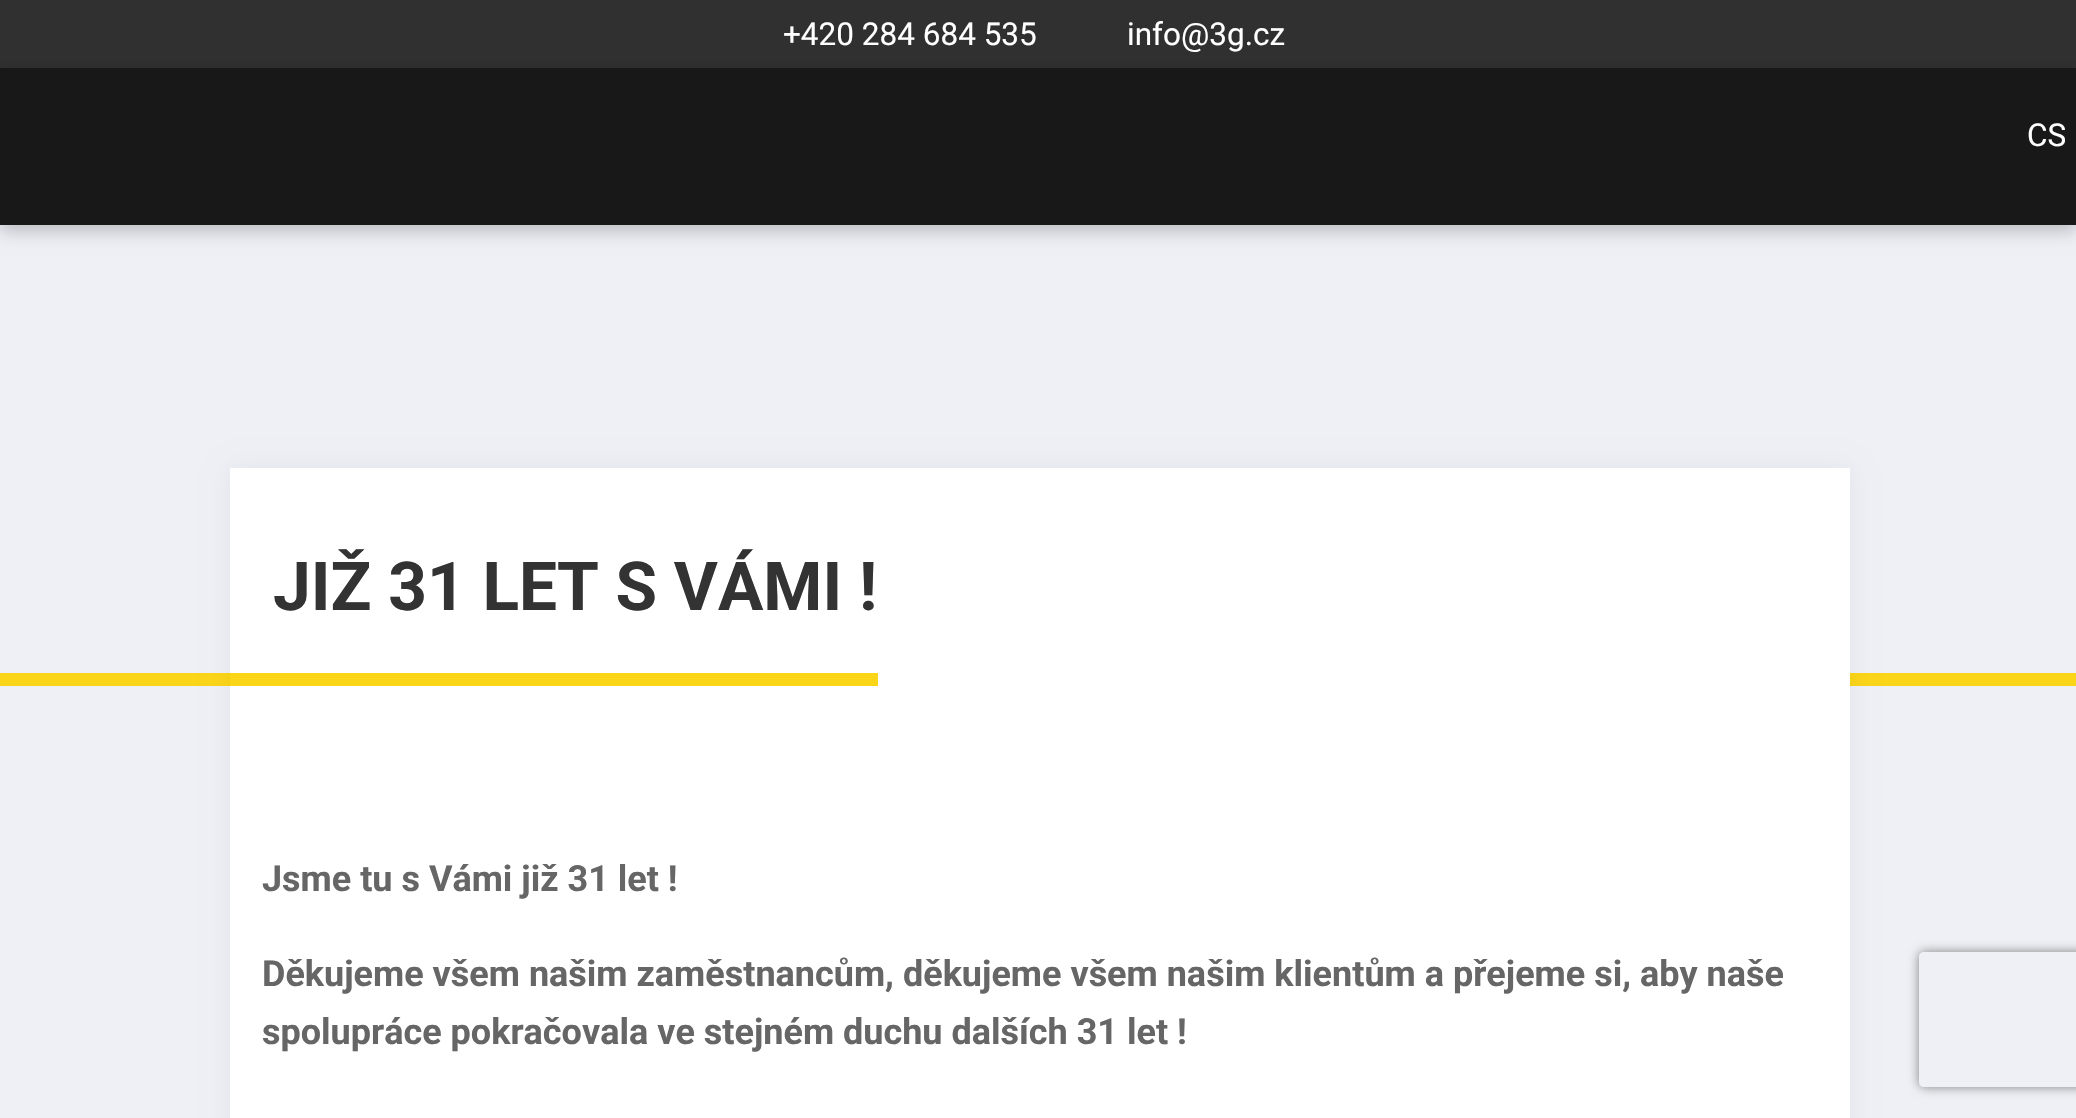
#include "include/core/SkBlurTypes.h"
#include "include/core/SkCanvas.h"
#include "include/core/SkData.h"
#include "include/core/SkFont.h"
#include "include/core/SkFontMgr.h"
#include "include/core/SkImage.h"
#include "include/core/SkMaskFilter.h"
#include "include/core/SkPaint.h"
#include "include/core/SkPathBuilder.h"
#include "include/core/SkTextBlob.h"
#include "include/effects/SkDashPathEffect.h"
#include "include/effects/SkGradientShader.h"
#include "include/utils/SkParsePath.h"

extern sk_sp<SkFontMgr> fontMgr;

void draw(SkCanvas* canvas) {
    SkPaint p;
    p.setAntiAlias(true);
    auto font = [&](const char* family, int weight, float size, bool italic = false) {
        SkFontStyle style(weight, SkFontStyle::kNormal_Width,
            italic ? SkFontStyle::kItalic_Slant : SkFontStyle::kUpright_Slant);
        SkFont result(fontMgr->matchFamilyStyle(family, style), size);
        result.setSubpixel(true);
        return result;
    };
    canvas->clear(0xFFEFF0F6);
    p.setColor(0xFF303031);
    canvas->drawRect(SkRect::MakeLTRB(0, 0, 2076, 68), p);
    auto font1 = font("Roboto", 400, 31.5f);
    p.setColor(0xFFFFFFFF);
    canvas->drawString("+420 284 684 535", 783, 45, font1, p);
    canvas->drawString("info@3g.cz", 1127, 45, font1, p);
    p.setColor(0x33000000);
    p.setMaskFilter(SkMaskFilter::MakeBlur(kNormal_SkBlurStyle, 8));
    canvas->drawRect(SkRect::MakeLTRB(0, 74, 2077, 232), p);
    p.setMaskFilter(nullptr);
    p.setColor(0xFF181819);
    canvas->drawRect(SkRect::MakeLTRB(0, 68, 2076, 225), p);
    p.setColor(0xFFFFFFFF);
    canvas->drawString("CS", 2027, 146, font1, p);
    p.setColor(0xFFFBD518);
    canvas->drawRect(SkRect::MakeLTRB(0, 673, 2076, 686), p);
    p.setColor(0x0D000000);
    p.setMaskFilter(SkMaskFilter::MakeBlur(kNormal_SkBlurStyle, 11));
    canvas->drawRect(SkRect::MakeLTRB(230, 468, 1850, 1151), p);
    p.setMaskFilter(nullptr);
    p.setColor(0xFFFFFFFF);
    canvas->drawRect(SkRect::MakeLTRB(230, 468, 1850, 1118), p);
    p.setColor(0xFFFBD518);
    canvas->drawRect(SkRect::MakeLTRB(230, 673, 878, 686), p);
    auto font2 = font("Roboto", 700, 67.5f);
    p.setColor(0xFF333333);
    canvas->drawString("JIŽ 31 LET S VÁMI !", 273, 610, font2, p);
    auto font3 = font("Roboto", 700, 36);
    p.setColor(0xFF666666);
    {
        const struct { const char* s; float x, y; } items[] = {
            {"Jsme tu s Vámi již 31 let !", 262, 891},
            {"Děkujeme všem našim zaměstnancům, děkujeme všem našim klientům a přejeme si, aby naše", 262, 986},
            {"spolupráce pokračovala ve stejném duchu dalších 31 let !", 262, 1044},
        };
        for (auto [s, x, y] : items) {
            canvas->drawString(s, x, y, font3, p);
        }
    }
    canvas->save();
    canvas->clipPath(SkPathBuilder(SkPathFillType::kEvenOdd).moveTo(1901, 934).lineTo(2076, 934).lineTo(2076, 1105).lineTo(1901, 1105).close().moveTo(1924, 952).lineTo(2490, 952).cubicTo(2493, 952, 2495, 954, 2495, 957).lineTo(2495, 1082).cubicTo(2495, 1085, 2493, 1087, 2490, 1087).lineTo(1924, 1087).cubicTo(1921, 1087, 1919, 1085, 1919, 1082).lineTo(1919, 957).cubicTo(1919, 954, 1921, 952, 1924, 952).close().detach(), true);
    p.setColor(0xFF808080);
    p.setMaskFilter(SkMaskFilter::MakeBlur(kNormal_SkBlurStyle, 5.5f));
    canvas->drawRoundRect(SkRect::MakeLTRB(1919, 952, 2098, 1087), 5, 5, p);
    p.setMaskFilter(nullptr);
    canvas->restore();
}
